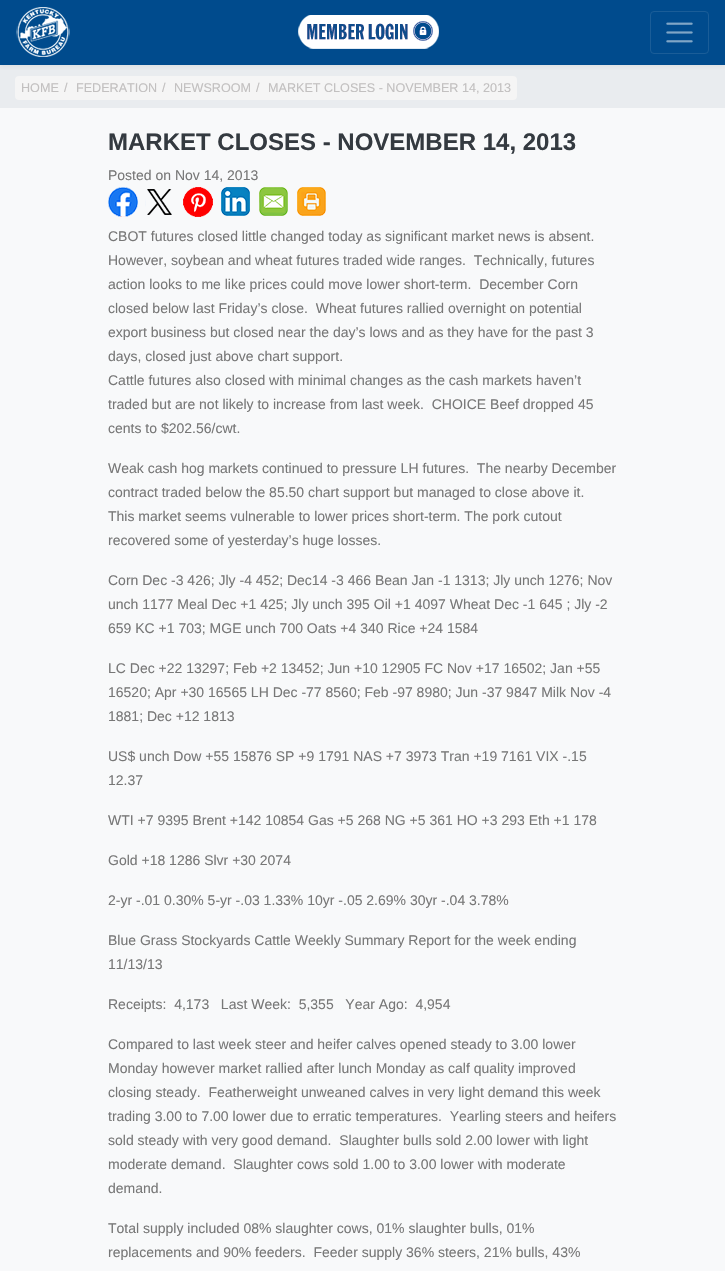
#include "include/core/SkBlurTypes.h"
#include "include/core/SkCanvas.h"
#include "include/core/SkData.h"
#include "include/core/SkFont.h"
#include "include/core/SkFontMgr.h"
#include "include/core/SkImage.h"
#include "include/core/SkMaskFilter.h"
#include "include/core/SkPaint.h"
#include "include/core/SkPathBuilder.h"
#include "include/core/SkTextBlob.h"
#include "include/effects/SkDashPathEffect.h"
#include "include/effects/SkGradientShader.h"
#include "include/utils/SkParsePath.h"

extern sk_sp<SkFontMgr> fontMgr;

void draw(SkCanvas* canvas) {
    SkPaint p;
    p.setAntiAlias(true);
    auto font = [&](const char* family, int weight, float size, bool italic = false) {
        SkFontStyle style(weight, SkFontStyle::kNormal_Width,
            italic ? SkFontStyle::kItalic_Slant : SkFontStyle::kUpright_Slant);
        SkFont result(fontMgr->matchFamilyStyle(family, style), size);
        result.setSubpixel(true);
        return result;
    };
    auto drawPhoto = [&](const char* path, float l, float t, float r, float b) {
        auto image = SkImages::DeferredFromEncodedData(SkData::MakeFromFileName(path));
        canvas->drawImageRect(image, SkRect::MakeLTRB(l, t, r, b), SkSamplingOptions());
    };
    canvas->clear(0xFFF8F9FA);
    p.setColor(0xFFE9ECEF);
    canvas->drawRect(SkRect::MakeLTRB(0, 65, 725, 108), p);
    p.setColor(0x12343A40);
    p.setMaskFilter(SkMaskFilter::MakeBlur(kNormal_SkBlurStyle, 2));
    canvas->drawRect(SkRect::MakeLTRB(0, 2, 725, 67), p);
    p.setMaskFilter(nullptr);
    p.setColor(0xFF004B8D);
    canvas->drawRect(SkRect::MakeLTRB(0, 0, 725, 65), p);
    drawPhoto("media/1.png", 16, 7, 70, 57);
    drawPhoto("media/2.png", 298, 15, 439, 49);
    p.setStyle(SkPaint::kStroke_Style);
    p.setStrokeWidth(1);
    p.setColor(0xFF1A5D98);
    canvas->drawRoundRect(SkRect::MakeLTRB(650.5f, 11.5f, 708.5f, 53.5f), 3.5f, 3.5f, p);
    drawPhoto("media/3.png", 666, 22, 693, 43);
    p.setStyle(SkPaint::kFill_Style);
    p.setColor(0xFFF5F5F5);
    canvas->drawRoundRect(SkRect::MakeLTRB(15, 76, 517, 100), 4, 4, p);
    auto font1 = font("Liberation Sans", 400, 12.6f);
    p.setColor(0xFFC2C0C0);
    {
        const struct { const char* s; float x, y; } items[] = {
            {"HOME", 21, 92},
            {"/", 64, 92},
            {"FEDERATION", 76, 92},
            {"/", 162, 92},
            {"NEWSROOM", 174, 92},
            {"/", 256, 92},
            {"MARKET CLOSES - NOVEMBER 14, 2013", 268, 92},
        };
        for (auto [s, x, y] : items) {
            canvas->drawString(s, x, y, font1, p);
        }
    }
    auto font2 = font("Liberation Sans", 700, 24);
    p.setColor(0xFF343A40);
    canvas->drawString("MARKET CLOSES - NOVEMBER 14, 2013", 108, 150, font2, p);
    auto font3 = font("Liberation Sans", 400, 14);
    p.setColor(0xFF777777);
    canvas->drawString("Posted on Nov 14, 2013", 108, 180, font3, p);
    drawPhoto("media/4.png", 108, 187, 138, 217);
    drawPhoto("media/5.png", 145, 189, 172, 215);
    drawPhoto("media/6.png", 183, 187, 213, 217);
    drawPhoto("media/7.png", 221, 187, 250, 216);
    drawPhoto("media/8.png", 259, 187, 288, 216);
    drawPhoto("media/9.png", 297, 187, 326, 216);
    {
        const struct { const char* s; float x, y; } items[] = {
            {"CBOT futures closed little changed today as significant market news is absent.", 108, 241},
            {"However, soybean and wheat futures traded wide ranges.  Technically, futures", 108, 265},
            {"action looks to me like prices could move lower short-term.  December Corn", 108, 289},
            {"closed below last Friday’s close.  Wheat futures rallied overnight on potential", 108, 313},
            {"export business but closed near the day’s lows and as they have for the past 3", 108, 337},
            {"days, closed just above chart support.", 108, 361},
            {"Cattle futures also closed with minimal changes as the cash markets haven’t", 108, 385},
            {"traded but are not likely to increase from last week.  CHOICE Beef dropped 45", 108, 409},
            {"cents to $202.56/cwt.", 108, 433},
            {"Weak cash hog markets continued to pressure LH futures.  The nearby December", 108, 473},
            {"contract traded below the 85.50 chart support but managed to close above it.", 108, 497},
            {"This market seems vulnerable to lower prices short-term. The pork cutout", 108, 521},
            {"recovered some of yesterday’s huge losses.", 108, 545},
            {"Corn Dec -3 426; Jly -4 452; Dec14 -3 466 Bean Jan -1 1313; Jly unch 1276; Nov", 108, 585},
            {"unch 1177 Meal Dec +1 425; Jly unch 395 Oil +1 4097 Wheat Dec -1 645 ; Jly -2", 108, 609},
            {"659 KC +1 703; MGE unch 700 Oats +4 340 Rice +24 1584", 108, 633},
            {"LC Dec +22 13297; Feb +2 13452; Jun +10 12905 FC Nov +17 16502; Jan +55", 108, 673},
            {"16520; Apr +30 16565 LH Dec -77 8560; Feb -97 8980; Jun -37 9847 Milk Nov -4", 108, 697},
            {"1881; Dec +12 1813", 108, 721},
            {"US$ unch Dow +55 15876 SP +9 1791 NAS +7 3973 Tran +19 7161 VIX -.15", 108, 761},
            {"12.37", 108, 785},
            {"WTI +7 9395 Brent +142 10854 Gas +5 268 NG +5 361 HO +3 293 Eth +1 178", 108, 825},
            {"Gold +18 1286 Slvr +30 2074", 108, 865},
            {"2-yr -.01 0.30% 5-yr -.03 1.33% 10yr -.05 2.69% 30yr -.04 3.78%", 108, 905},
            {"Blue Grass Stockyards Cattle Weekly Summary Report for the week ending", 108, 945},
            {"11/13/13", 108, 969},
            {"Receipts:  4,173   Last Week:  5,355   Year Ago:  4,954", 108, 1009},
            {"Compared to last week steer and heifer calves opened steady to 3.00 lower", 108, 1049},
            {"Monday however market rallied after lunch Monday as calf quality improved", 108, 1073},
            {"closing steady.  Featherweight unweaned calves in very light demand this week", 108, 1097},
            {"trading 3.00 to 7.00 lower due to erratic temperatures.  Yearling steers and heifers", 108, 1121},
            {"sold steady with very good demand.  Slaughter bulls sold 2.00 lower with light", 108, 1145},
            {"moderate demand.  Slaughter cows sold 1.00 to 3.00 lower with moderate", 108, 1169},
            {"demand.", 108, 1193},
            {"Total supply included 08% slaughter cows, 01% slaughter bulls, 01%", 108, 1233},
            {"replacements and 90% feeders.  Feeder supply 36% steers, 21% bulls, 43%", 108, 1257},
        };
        for (auto [s, x, y] : items) {
            canvas->drawString(s, x, y, font3, p);
        }
    }
}
